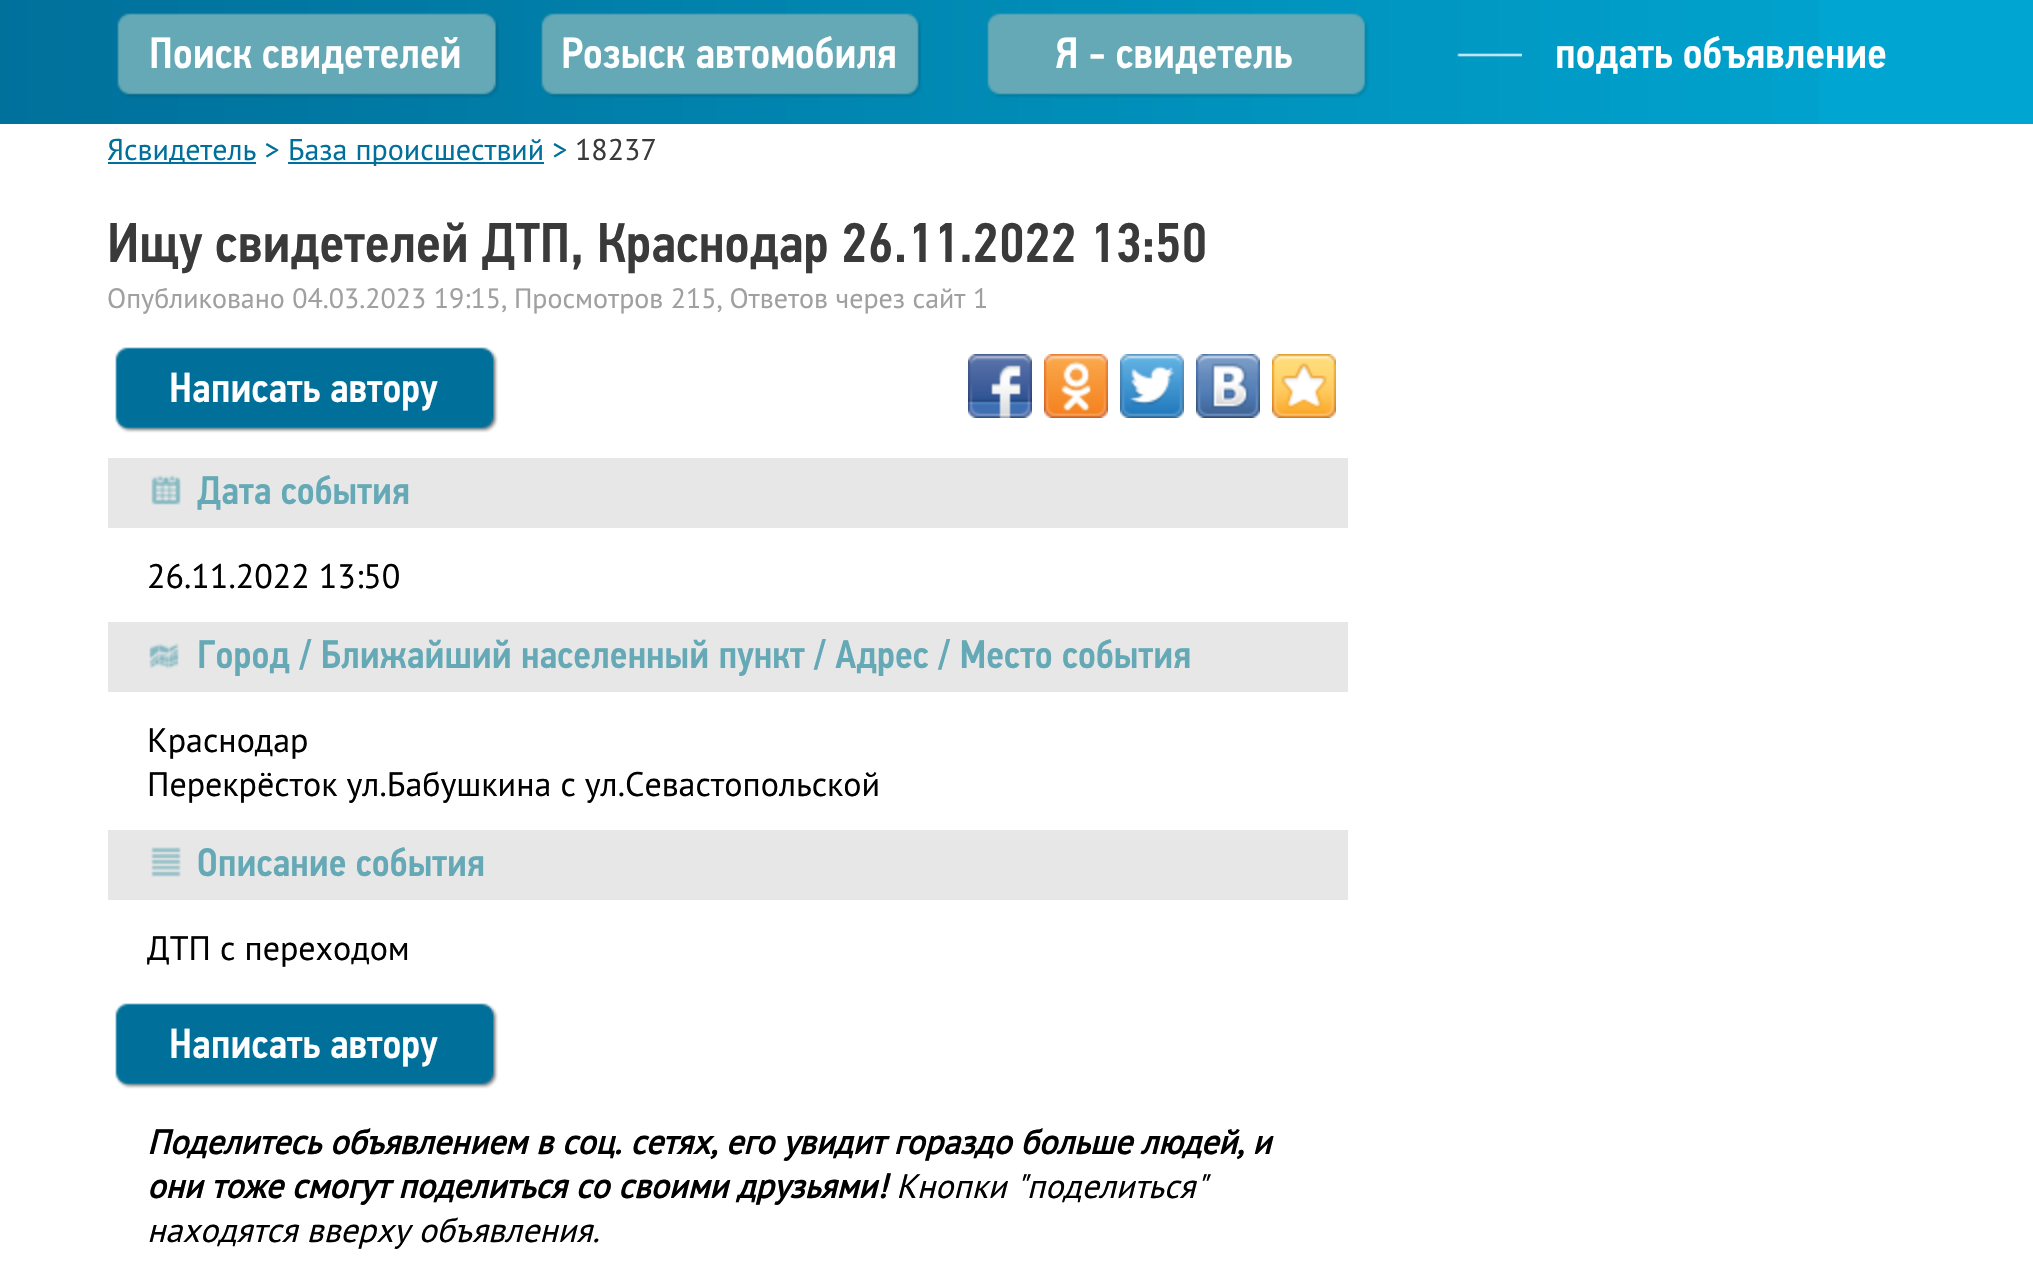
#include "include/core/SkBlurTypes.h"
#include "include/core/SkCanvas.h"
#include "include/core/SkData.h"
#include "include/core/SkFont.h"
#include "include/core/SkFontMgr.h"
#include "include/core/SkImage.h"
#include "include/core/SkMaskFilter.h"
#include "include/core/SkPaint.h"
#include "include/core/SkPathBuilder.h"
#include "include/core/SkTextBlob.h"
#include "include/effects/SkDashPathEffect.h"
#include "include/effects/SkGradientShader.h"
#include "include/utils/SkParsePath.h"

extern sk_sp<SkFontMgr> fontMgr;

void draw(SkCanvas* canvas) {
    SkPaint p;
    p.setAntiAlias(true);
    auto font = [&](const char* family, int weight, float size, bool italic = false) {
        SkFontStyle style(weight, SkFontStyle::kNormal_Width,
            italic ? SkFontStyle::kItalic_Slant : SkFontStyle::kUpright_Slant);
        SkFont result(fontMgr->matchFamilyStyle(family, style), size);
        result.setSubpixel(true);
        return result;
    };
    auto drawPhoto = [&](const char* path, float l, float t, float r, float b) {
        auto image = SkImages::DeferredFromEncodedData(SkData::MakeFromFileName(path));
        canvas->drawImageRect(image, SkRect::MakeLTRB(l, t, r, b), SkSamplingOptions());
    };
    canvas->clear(0xFFFFFFFF);
    p.setColor(0xFF00A6D1);
    canvas->drawRect(SkRect::MakeLTRB(1819, 0, 2033, 124), p);
    drawPhoto("media/1.png", 0, 0, 1819, 124);
    drawPhoto("media/2.png", 117, 13, 499, 98);
    auto font1 = font("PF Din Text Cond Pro", 500, 44);
    p.setColor(0xFFFFFFFF);
    canvas->drawString("Поиск свидетелей", 149, 68, font1, p);
    drawPhoto("media/3.png", 541, 13, 922, 98);
    canvas->drawString("Розыск автомобиля", 561, 68, font1, p);
    drawPhoto("media/4.png", 987, 13, 1369, 98);
    canvas->drawString("Я - свидетель", 1055, 68, font1, p);
    drawPhoto("media/5.png", 1457, 53, 1522, 57);
    canvas->drawString("подать объявление", 1555, 68, font1, p);
    p.setColor(0xFF00709A);
    canvas->drawRect(SkRect::MakeLTRB(108, 162, 256, 164), p);
    auto font2 = font("PT Sans", 400, 30);
    canvas->drawString("Ясвидетель >", 107, 160, font2, p);
    canvas->drawRect(SkRect::MakeLTRB(288, 162, 544, 164), p);
    canvas->drawString("База происшествий >", 288, 160, font2, p);
    p.setColor(0xFF3A3A3A);
    canvas->drawString("18237", 575, 160, font2, p);
    auto font3 = font("PF Din Text Cond Pro", 500, 56);
    canvas->drawString("Ищу свидетелей ДТП, Краснодар 26.11.2022 13:50", 107, 262, font3, p);
    auto font4 = font("PT Sans", 400, 28);
    p.setColor(0xFFA0A0A0);
    canvas->drawString("Опубликовано 04.03.2023 19:15, Просмотров 215, Ответов через сайт 1", 107, 308, font4, p);
    drawPhoto("media/6.png", 115, 347, 498, 433);
    auto font5 = font("PF Din Text Cond Pro", 500, 42);
    p.setColor(0xFFFFFFFF);
    canvas->drawString("Написать автору", 169, 402, font5, p);
    drawPhoto("media/7.png", 968, 354, 1032, 418);
    drawPhoto("media/8.png", 1044, 354, 1108, 418);
    drawPhoto("media/9.png", 1120, 354, 1184, 418);
    drawPhoto("media/10.png", 1196, 354, 1260, 418);
    drawPhoto("media/11.png", 1272, 354, 1336, 418);
    p.setColor(0xFFE7E7E7);
    canvas->drawRect(SkRect::MakeLTRB(108, 458, 1348, 528), p);
    drawPhoto("media/12.png", 151, 475, 181, 505);
    auto font6 = font("PF Din Text Cond Pro", 500, 40);
    p.setColor(0xFF64A9B5);
    canvas->drawString("Дата события", 197, 504, font6, p);
    auto font7 = font("PT Sans", 400, 34);
    p.setColor(0xFF000000);
    canvas->drawString("26.11.2022 13:50", 147, 588, font7, p);
    p.setColor(0xFFE7E7E7);
    canvas->drawRect(SkRect::MakeLTRB(108, 622, 1348, 692), p);
    drawPhoto("media/13.png", 149, 643, 179, 669);
    p.setColor(0xFF64A9B5);
    canvas->drawString("Город / Ближайший населенный пункт / Адрес / Место события", 197, 668, font6, p);
    p.setColor(0xFF000000);
    canvas->drawString("Краснодар", 147, 752, font7, p);
    canvas->drawString("Перекрёсток ул.Бабушкина с ул.Севастопольской", 147, 796, font7, p);
    p.setColor(0xFFE7E7E7);
    canvas->drawRect(SkRect::MakeLTRB(108, 830, 1348, 900), p);
    drawPhoto("media/14.png", 151, 847, 181, 877);
    p.setColor(0xFF64A9B5);
    canvas->drawString("Описание события", 197, 876, font6, p);
    p.setColor(0xFF000000);
    canvas->drawString("ДТП с переходом", 147, 960, font7, p);
    drawPhoto("media/6.png", 115, 1003, 498, 1089);
    p.setColor(0xFFFFFFFF);
    canvas->drawString("Написать автору", 169, 1058, font5, p);
    auto font8 = font("PT Sans", 700, 34, true);
    p.setColor(0xFF000000);
    canvas->drawString("Поделитесь объявлением в соц. сетях, его увидит гораздо больше людей, и", 147, 1154, font8, p);
    canvas->drawString("они тоже смогут поделиться со своими друзьями!", 147, 1198, font8, p);
    auto font9 = font("PT Sans", 400, 34, true);
    canvas->drawString("Кнопки \"поделиться\"", 896, 1198, font9, p);
    canvas->drawString("находятся вверху объявления.", 147, 1242, font9, p);
}
